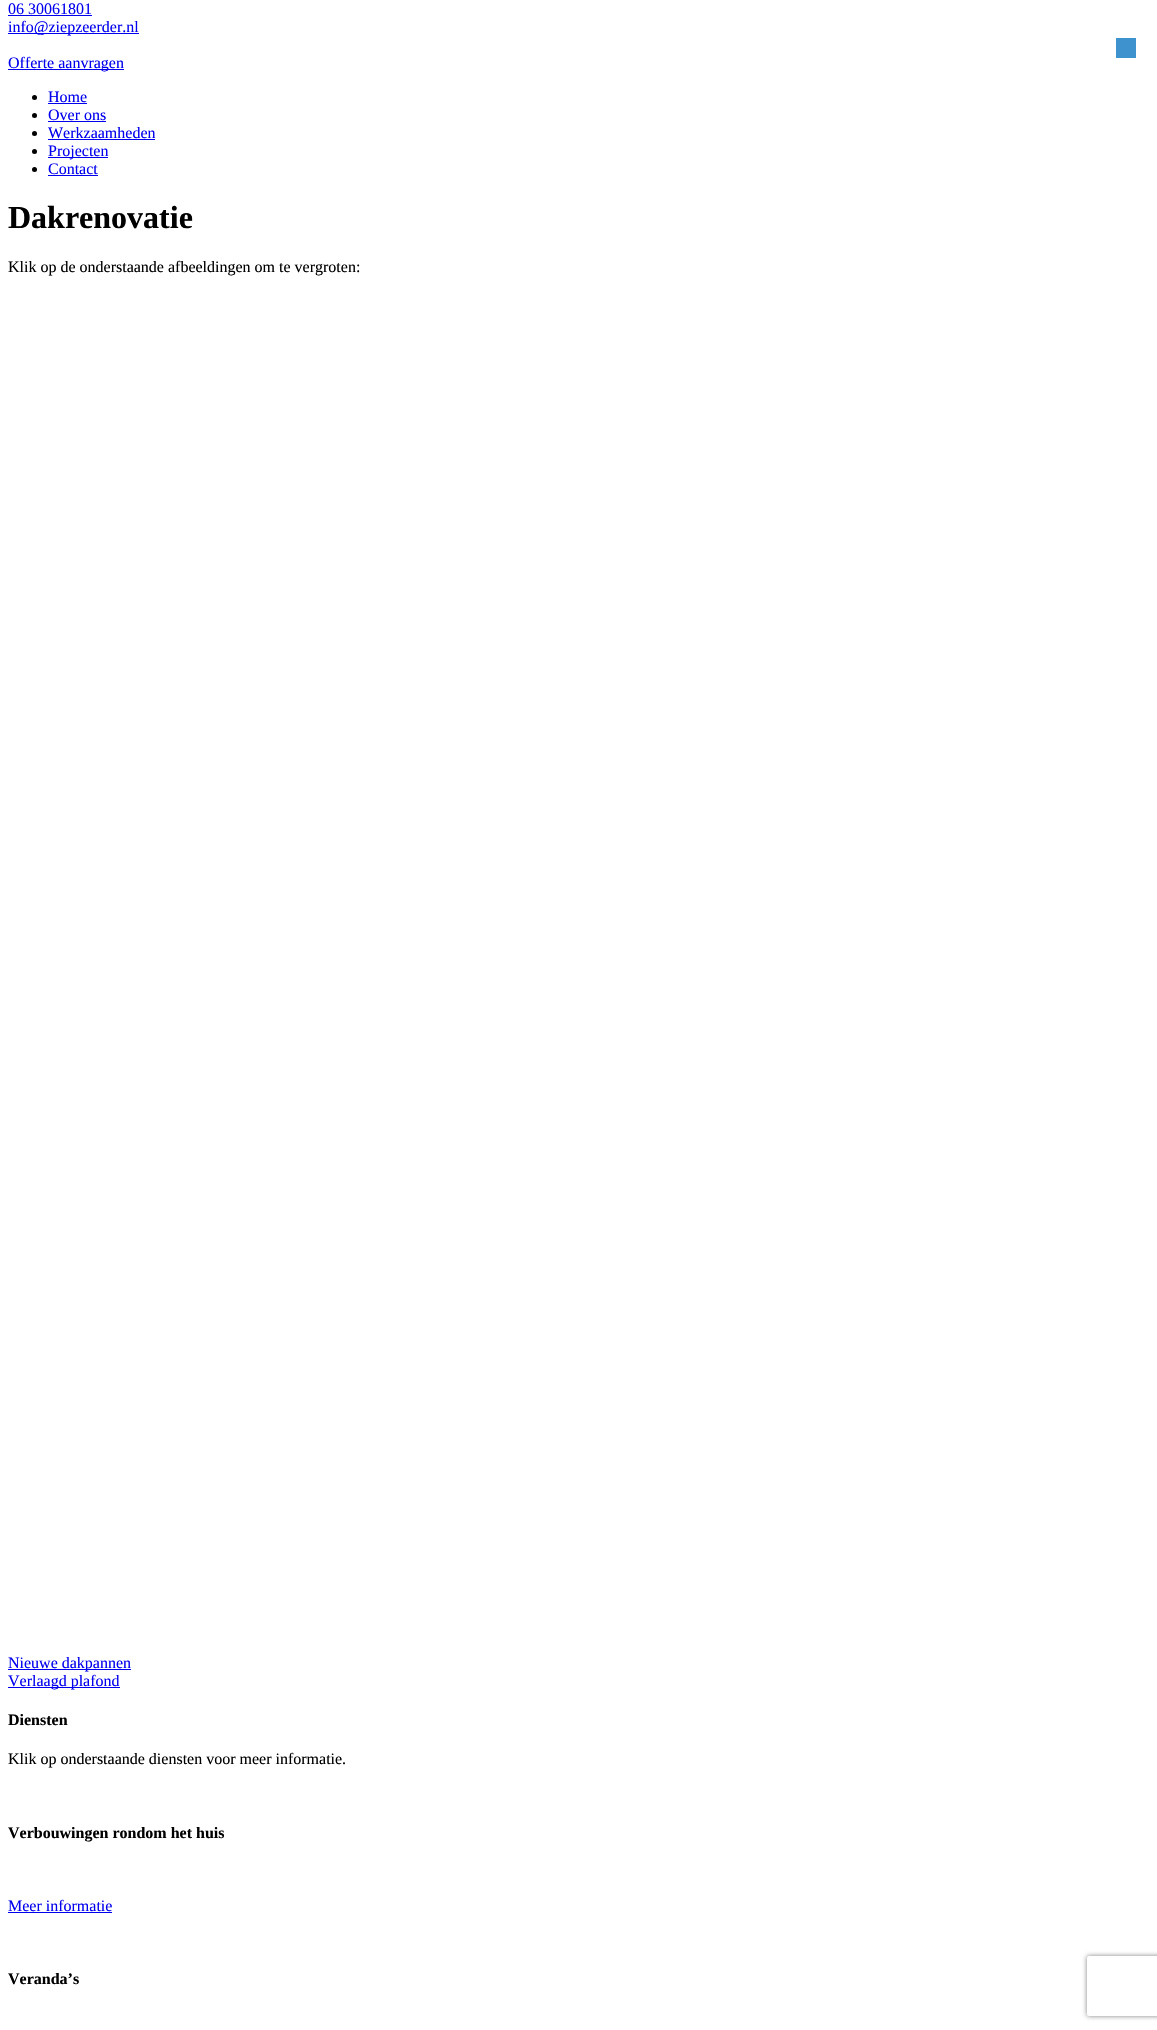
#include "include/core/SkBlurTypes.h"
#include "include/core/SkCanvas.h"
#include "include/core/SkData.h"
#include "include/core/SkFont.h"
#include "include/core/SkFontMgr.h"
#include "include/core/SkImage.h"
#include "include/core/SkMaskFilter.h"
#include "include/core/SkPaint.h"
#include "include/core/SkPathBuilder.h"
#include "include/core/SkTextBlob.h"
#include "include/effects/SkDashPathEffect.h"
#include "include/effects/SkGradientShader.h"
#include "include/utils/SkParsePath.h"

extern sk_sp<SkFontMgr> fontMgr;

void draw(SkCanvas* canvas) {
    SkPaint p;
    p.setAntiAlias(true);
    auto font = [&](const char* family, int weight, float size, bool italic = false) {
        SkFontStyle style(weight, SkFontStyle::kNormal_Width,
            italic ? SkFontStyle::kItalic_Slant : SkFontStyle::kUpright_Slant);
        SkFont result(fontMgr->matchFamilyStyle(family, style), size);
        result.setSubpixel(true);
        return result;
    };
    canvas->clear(0xFFFFFFFF);
    auto font1 = font("Liberation Serif", 400, 16);
    p.setColor(0xFF0000EE);
    canvas->drawString("06 30061801", 8, 14, font1, p);
    canvas->drawRect(SkRect::MakeLTRB(8, 15, 92, 16), p);
    canvas->drawRect(SkRect::MakeLTRB(8, 33, 139, 34), p);
    canvas->drawString("info@ziepzeerder.nl", 8, 32, font1, p);
    canvas->drawRect(SkRect::MakeLTRB(8, 69, 124, 70), p);
    canvas->drawString("Offerte aanvragen", 8, 68, font1, p);
    p.setColor(0xFF000000);
    canvas->drawCircle(34.5f, 97.5f, 2.5f, p);
    p.setColor(0xFF0000EE);
    canvas->drawString("Home", 48, 102, font1, p);
    canvas->drawRect(SkRect::MakeLTRB(48, 103, 87, 104), p);
    p.setColor(0xFF000000);
    canvas->drawCircle(34.5f, 115.5f, 2.5f, p);
    p.setColor(0xFF0000EE);
    canvas->drawString("Over ons", 48, 120, font1, p);
    canvas->drawRect(SkRect::MakeLTRB(48, 121, 106, 122), p);
    p.setColor(0xFF000000);
    canvas->drawCircle(34.5f, 133.5f, 2.5f, p);
    p.setColor(0xFF0000EE);
    canvas->drawString("Werkzaamheden", 48, 138, font1, p);
    canvas->drawRect(SkRect::MakeLTRB(48, 139, 155, 140), p);
    p.setColor(0xFF000000);
    canvas->drawCircle(34.5f, 151.5f, 2.5f, p);
    p.setColor(0xFF0000EE);
    canvas->drawRect(SkRect::MakeLTRB(48, 157, 108, 158), p);
    canvas->drawString("Projecten", 48, 156, font1, p);
    p.setColor(0xFF000000);
    canvas->drawCircle(34.5f, 169.5f, 2.5f, p);
    p.setColor(0xFF0000EE);
    canvas->drawString("Contact", 48, 174, font1, p);
    canvas->drawRect(SkRect::MakeLTRB(48, 175, 98, 176), p);
    p.setColor(0xFF3E92CD);
    canvas->drawRect(SkRect::MakeLTRB(1116, 38, 1136, 58), p);
    auto font2 = font("Liberation Serif", 700, 32);
    p.setColor(0xFF000000);
    canvas->drawString("Dakrenovatie", 8, 228, font2, p);
    canvas->drawString("Klik op de onderstaande afbeeldingen om te vergroten:", 8, 272, font1, p);
    p.setColor(0xFF0000EE);
    canvas->drawRect(SkRect::MakeLTRB(8, 1669, 131, 1670), p);
    canvas->drawString("Nieuwe dakpannen", 8, 1668, font1, p);
    canvas->drawRect(SkRect::MakeLTRB(8, 1687, 120, 1688), p);
    canvas->drawString("Verlaagd plafond", 8, 1686, font1, p);
    auto font3 = font("Liberation Serif", 700, 16);
    p.setColor(0xFF000000);
    canvas->drawString("Diensten", 8, 1725, font3, p);
    canvas->drawString("Klik op onderstaande diensten voor meer informatie.", 8, 1764, font1, p);
    canvas->drawString("Verbouwingen rondom het huis", 8, 1838, font3, p);
    p.setColor(0xFF0000EE);
    canvas->drawString("Meer informatie", 8, 1911, font1, p);
    canvas->drawRect(SkRect::MakeLTRB(8, 1912, 112, 1913), p);
    p.setColor(0xFF000000);
    canvas->drawString("Veranda’s", 8, 1984, font3, p);
    canvas->save();
    canvas->clipPath(SkPathBuilder(SkPathFillType::kEvenOdd).moveTo(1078, 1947).lineTo(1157, 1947).lineTo(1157, 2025).lineTo(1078, 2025).close().moveTo(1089, 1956).lineTo(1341, 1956).cubicTo(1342, 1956, 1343, 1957, 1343, 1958).lineTo(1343, 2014).cubicTo(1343, 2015, 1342, 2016, 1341, 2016).lineTo(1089, 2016).cubicTo(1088, 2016, 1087, 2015, 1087, 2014).lineTo(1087, 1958).cubicTo(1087, 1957, 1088, 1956, 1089, 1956).close().detach(), true);
    p.setColor(0xFF808080);
    p.setMaskFilter(SkMaskFilter::MakeBlur(kNormal_SkBlurStyle, 2.5f));
    canvas->drawRoundRect(SkRect::MakeLTRB(1087, 1956, 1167, 2016), 2, 2, p);
    p.setMaskFilter(nullptr);
    canvas->restore();
}
